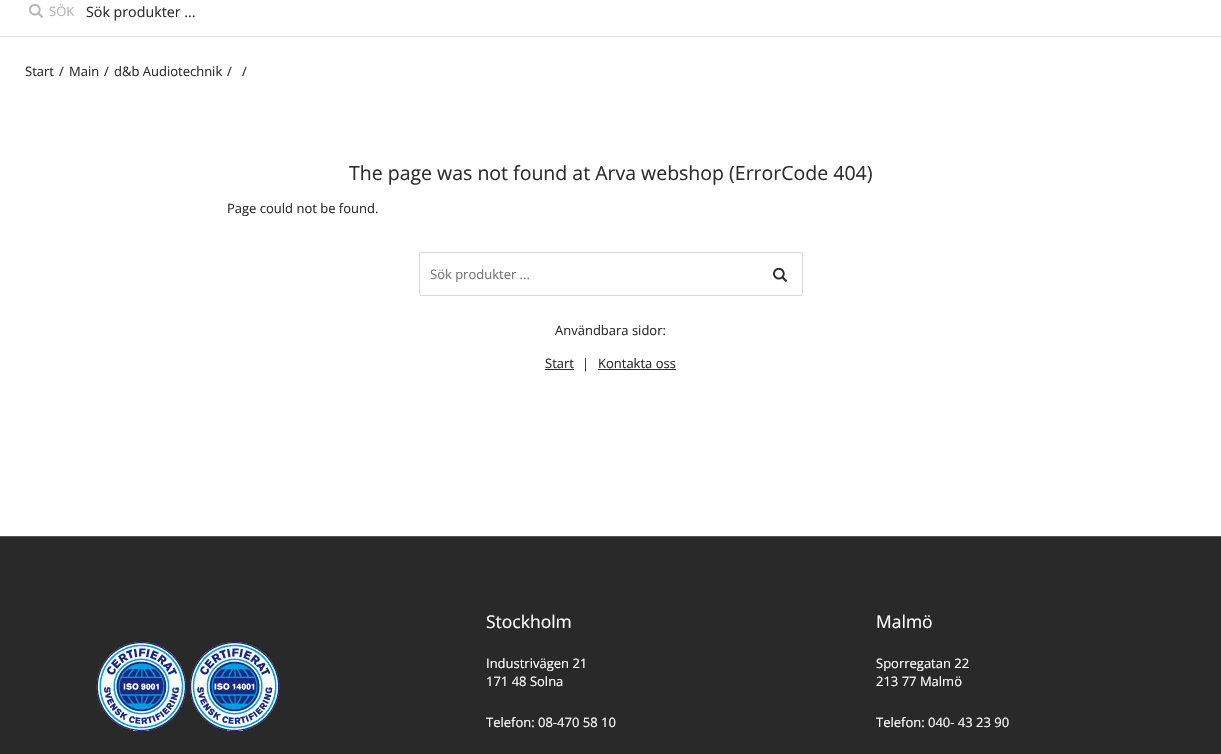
#include "include/core/SkBlurTypes.h"
#include "include/core/SkCanvas.h"
#include "include/core/SkData.h"
#include "include/core/SkFont.h"
#include "include/core/SkFontMgr.h"
#include "include/core/SkImage.h"
#include "include/core/SkMaskFilter.h"
#include "include/core/SkPaint.h"
#include "include/core/SkPathBuilder.h"
#include "include/core/SkTextBlob.h"
#include "include/effects/SkDashPathEffect.h"
#include "include/effects/SkGradientShader.h"
#include "include/utils/SkParsePath.h"

extern sk_sp<SkFontMgr> fontMgr;

void draw(SkCanvas* canvas) {
    SkPaint p;
    p.setAntiAlias(true);
    auto font = [&](const char* family, int weight, float size, bool italic = false) {
        SkFontStyle style(weight, SkFontStyle::kNormal_Width,
            italic ? SkFontStyle::kItalic_Slant : SkFontStyle::kUpright_Slant);
        SkFont result(fontMgr->matchFamilyStyle(family, style), size);
        result.setSubpixel(true);
        return result;
    };
    auto drawPhoto = [&](const char* path, float l, float t, float r, float b) {
        auto image = SkImages::DeferredFromEncodedData(SkData::MakeFromFileName(path));
        canvas->drawImageRect(image, SkRect::MakeLTRB(l, t, r, b), SkSamplingOptions());
    };
    canvas->clear(0xFFFFFFFF);
    p.setColor(0xFFE1E1E1);
    canvas->drawRect(SkRect::MakeLTRB(0, 36, 1221, 37), p);
    drawPhoto("media/1.png", 29, 3, 44, 18);
    auto font1 = font("Open Sans", 400, 13);
    p.setColor(0xFFB6B6B6);
    canvas->drawString("SÖK", 49, 16, font1, p);
    auto font2 = font("Open Sans", 400, 14.25f);
    p.setColor(0xFF2D2D2D);
    canvas->drawString("Sök produkter ...", 86, 17, font2, p);
    {
        const struct { const char* s; float x, y; } items[] = {
            {"Start", 25, 76},
            {"/", 59, 76},
            {"Main", 69, 76},
            {"/", 104, 76},
            {"d&b Audiotechnik", 114, 76},
            {"/", 227, 76},
            {"/", 242, 76},
        };
        for (auto [s, x, y] : items) {
            canvas->drawString(s, x, y, font1, p);
        }
    }
    auto font3 = font("Open Sans", 400, 19.5f);
    canvas->drawString("The page was not found at Arva webshop (ErrorCode 404)", 349, 180, font3, p);
    canvas->drawString("Page could not be found.", 227, 213, font1, p);
    p.setStyle(SkPaint::kStroke_Style);
    p.setStrokeWidth(1);
    p.setColor(0xFFDADADA);
    canvas->drawRoundRect(SkRect::MakeLTRB(419.5f, 252.5f, 802.5f, 295.5f), 1.5f, 1.5f, p);
    p.setStyle(SkPaint::kFill_Style);
    p.setColor(0xFF757575);
    canvas->drawString("Sök produkter ...", 430, 279, font1, p);
    drawPhoto("media/2.png", 773, 267, 788, 283);
    p.setColor(0xFF2D2D2D);
    canvas->drawString("Användbara sidor:", 555, 335, font1, p);
    canvas->drawString("Start", 545, 368, font1, p);
    canvas->drawRect(SkRect::MakeLTRB(545, 369, 574, 370), p);
    canvas->drawString("|", 582, 368, font1, p);
    canvas->drawString("Kontakta oss", 598, 368, font1, p);
    {
        const struct { float l, t, r, b; SkColor color; } items[] = {
            {598, 369, 676, 370, 0xFF2D2D2D},
            {0, 537, 1221, 754, 0xFF292929},
            {0, 536, 1221, 537, 0xFF565656},
        };
        for (auto [l, t, r, b, color] : items) {
            p.setColor(color);
            canvas->drawRect(SkRect::MakeLTRB(l, t, r, b), p);
        }
    }
    drawPhoto("media/3.png", 96, 642, 280, 731);
    auto font4 = font("Open Sans", 400, 17.5f);
    p.setColor(0xFFFFFFFF);
    canvas->drawString("Stockholm", 486, 628, font4, p);
    {
        const struct { const char* s; float x, y; } items[] = {
            {"Industrivägen 21", 486, 668},
            {"171 48 Solna", 486, 686},
            {"Telefon: 08-470 58 10", 486, 727},
        };
        for (auto [s, x, y] : items) {
            canvas->drawString(s, x, y, font1, p);
        }
    }
    canvas->drawString("Malmö", 876, 628, font4, p);
    {
        const struct { const char* s; float x, y; } items[] = {
            {"Sporregatan 22", 876, 668},
            {"213 77 Malmö", 876, 686},
            {"Telefon: 040- 43 23 90", 876, 727},
        };
        for (auto [s, x, y] : items) {
            canvas->drawString(s, x, y, font1, p);
        }
    }
}
